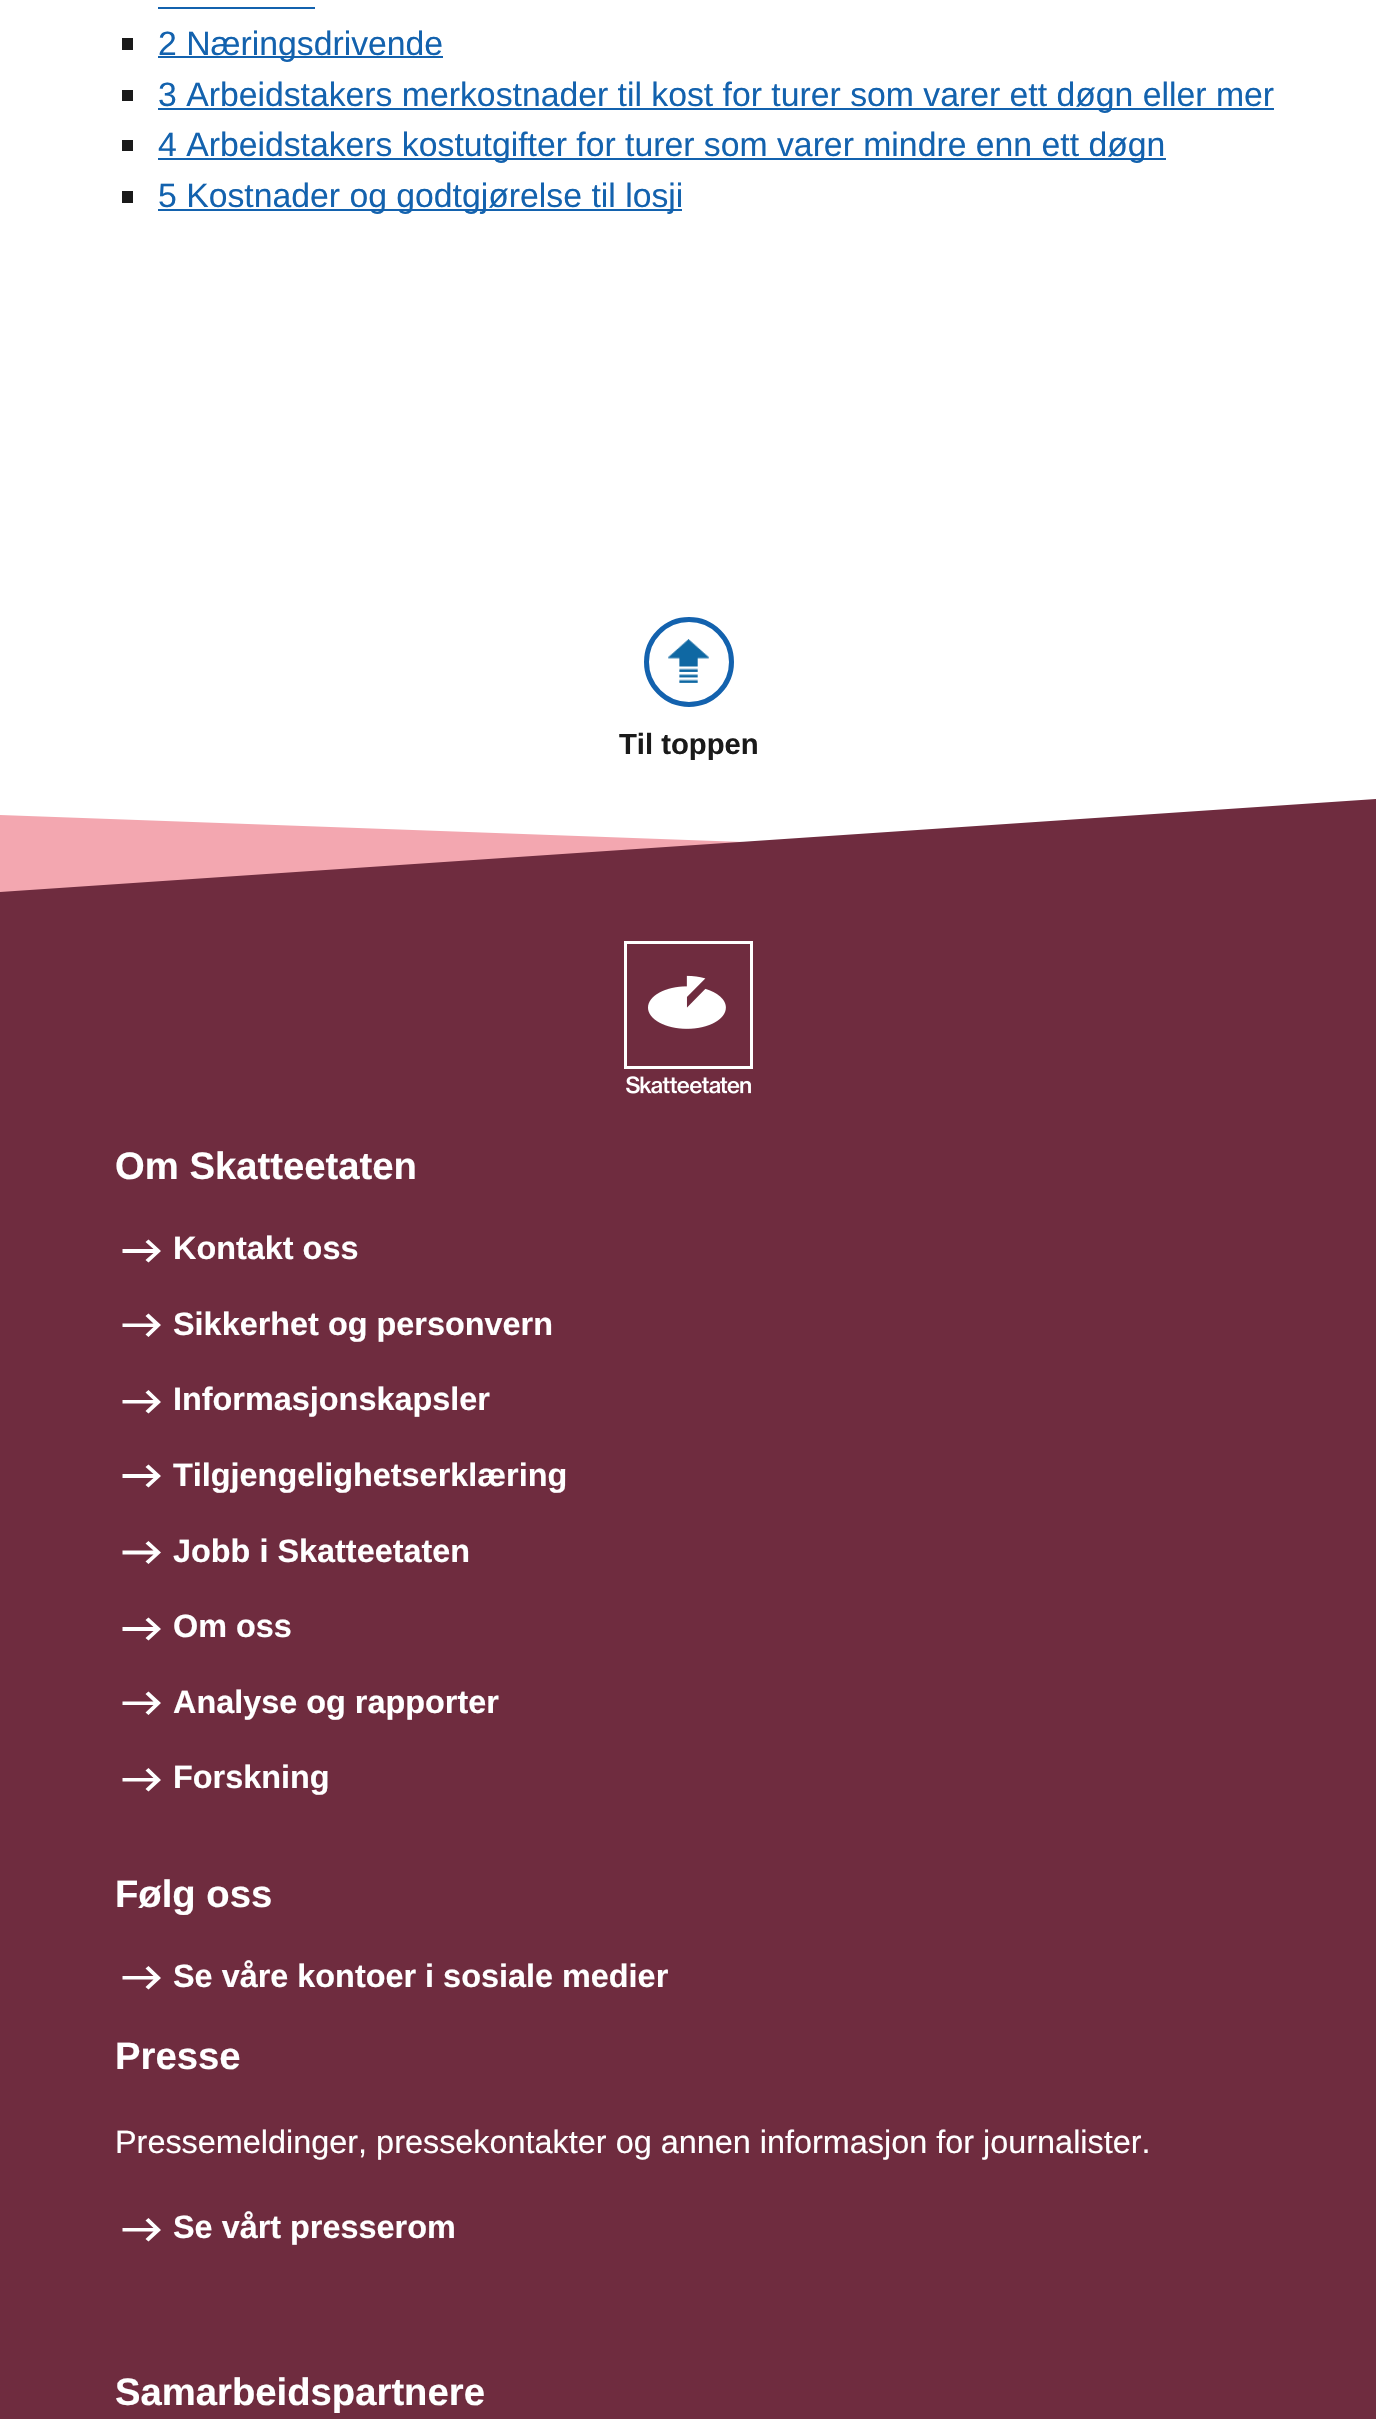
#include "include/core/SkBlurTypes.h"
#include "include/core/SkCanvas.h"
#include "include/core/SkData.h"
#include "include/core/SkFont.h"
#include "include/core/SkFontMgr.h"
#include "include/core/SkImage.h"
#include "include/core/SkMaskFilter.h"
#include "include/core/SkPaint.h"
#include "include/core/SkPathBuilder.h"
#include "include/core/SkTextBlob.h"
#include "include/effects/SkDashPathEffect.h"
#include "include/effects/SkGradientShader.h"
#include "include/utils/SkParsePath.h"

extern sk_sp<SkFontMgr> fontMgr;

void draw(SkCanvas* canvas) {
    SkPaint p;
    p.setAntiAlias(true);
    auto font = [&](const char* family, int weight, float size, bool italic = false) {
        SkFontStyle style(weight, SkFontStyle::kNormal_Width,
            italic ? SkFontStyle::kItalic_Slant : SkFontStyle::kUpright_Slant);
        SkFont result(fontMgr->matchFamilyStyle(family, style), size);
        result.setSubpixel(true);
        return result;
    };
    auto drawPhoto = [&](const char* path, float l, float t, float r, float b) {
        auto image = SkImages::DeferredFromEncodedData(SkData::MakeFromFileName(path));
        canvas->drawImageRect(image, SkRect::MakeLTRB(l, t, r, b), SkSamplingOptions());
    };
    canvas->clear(0xFFFFFFFF);
    {
        const struct { float l, t, r, b; SkColor color; } items[] = {
            {158, 7, 315, 9, 0xFF1362AE},
            {122, 38, 133, 50, 0xFF1A1A1A},
            {158, 56, 443, 58, 0xFF1362AE},
        };
        for (auto [l, t, r, b, color] : items) {
            p.setColor(color);
            canvas->drawRect(SkRect::MakeLTRB(l, t, r, b), p);
        }
    }
    auto font1 = font("Liberation Sans", 400, 33.75f);
    canvas->drawString("2 Næringsdrivende", 158, 55, font1, p);
    p.setColor(0xFF1A1A1A);
    canvas->drawRect(SkRect::MakeLTRB(122, 90, 133, 101), p);
    p.setColor(0xFF1362AE);
    canvas->drawRect(SkRect::MakeLTRB(158, 108, 1274, 110), p);
    canvas->drawString("3 Arbeidstakers merkostnader til kost for turer som varer ett døgn eller mer", 158, 106, font1, p);
    p.setColor(0xFF1A1A1A);
    canvas->drawRect(SkRect::MakeLTRB(122, 140, 133, 151), p);
    p.setColor(0xFF1362AE);
    canvas->drawRect(SkRect::MakeLTRB(158, 158, 1166, 160), p);
    canvas->drawString("4 Arbeidstakers kostutgifter for turer som varer mindre enn ett døgn", 158, 156, font1, p);
    p.setColor(0xFF1A1A1A);
    canvas->drawRect(SkRect::MakeLTRB(122, 191, 133, 203), p);
    p.setColor(0xFF1362AE);
    canvas->drawRect(SkRect::MakeLTRB(158, 209, 682, 211), p);
    canvas->drawString("5 Kostnader og godtgjørelse til losji", 158, 207, font1, p);
    drawPhoto("media/1.png", 668, 639, 709, 683);
    p.setStyle(SkPaint::kStroke_Style);
    p.setStrokeWidth(5);
    canvas->drawCircle(689, 662, 42.5f, p);
    auto font2 = font("Liberation Sans", 700, 29.25f);
    p.setStyle(SkPaint::kFill_Style);
    p.setColor(0xFF1A1A1A);
    canvas->drawString("Til toppen", 619, 754, font2, p);
    p.setColor(0xFFF3A7B0);
    canvas->drawPath(SkPathBuilder(SkPathFillType::kEvenOdd).moveTo(0, 894).lineTo(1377, 894).lineTo(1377, 865).lineTo(0, 815).close().detach(), p);
    canvas->save();
    canvas->clipRect(SkRect::MakeLTRB(0, 799, 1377, 896));
    p.setColor(0xFF6F2C3F);
    canvas->drawPath(SkPathBuilder(SkPathFillType::kEvenOdd).moveTo(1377, 892).lineTo(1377, 1400).lineTo(0, 1400).lineTo(0, 892).lineTo(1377, 799).close().detach(), p);
    canvas->restore();
    canvas->drawRect(SkRect::MakeLTRB(0, 896, 1376, 2419), p);
    drawPhoto("media/2.png", 624, 941, 753, 1094);
    auto font3 = font("Liberation Sans", 700, 38.25f);
    p.setColor(0xFFFFFFFF);
    canvas->drawString("Om Skatteetaten", 115, 1179, font3, p);
    canvas->drawPath(SkPathBuilder().moveTo(145.5f, 1242).lineTo(148.5f, 1239.5f).lineTo(161, 1251).lineTo(148.5f, 1262.5f).lineTo(145.5f, 1260).lineTo(153.5f, 1253).lineTo(122.5f, 1253).lineTo(122.5f, 1249).lineTo(153.5f, 1249).close().detach(), p);
    auto font4 = font("Liberation Sans", 700, 32.4f);
    canvas->drawString("Kontakt oss", 173, 1259, font4, p);
    canvas->drawPath(SkPathBuilder().moveTo(145.5f, 1316).lineTo(148.5f, 1313.5f).lineTo(161, 1325).lineTo(148.5f, 1337).lineTo(145.5f, 1334.5f).lineTo(153.5f, 1327).lineTo(122.5f, 1327).lineTo(122.5f, 1323.5f).lineTo(153.5f, 1323.5f).close().detach(), p);
    canvas->drawString("Sikkerhet og personvern", 173, 1335, font4, p);
    canvas->drawPath(SkPathBuilder().moveTo(145.5f, 1392.5f).lineTo(148.5f, 1390).lineTo(161, 1402).lineTo(148.5f, 1413.5f).lineTo(145.5f, 1411).lineTo(153.5f, 1403.5f).lineTo(122.5f, 1403.5f).lineTo(122.5f, 1400).lineTo(153.5f, 1400).close().detach(), p);
    canvas->drawString("Informasjonskapsler", 173, 1410, font4, p);
    canvas->drawPath(SkPathBuilder().moveTo(145.5f, 1467).lineTo(148.5f, 1464.5f).lineTo(161, 1476).lineTo(148.5f, 1487.5f).lineTo(145.5f, 1485).lineTo(153.5f, 1478).lineTo(122.5f, 1478).lineTo(122.5f, 1474).lineTo(153.5f, 1474).close().detach(), p);
    canvas->drawString("Tilgjengelighetserklæring", 173, 1486, font4, p);
    canvas->drawPath(SkPathBuilder().moveTo(145.5f, 1543.5f).lineTo(148.5f, 1541).lineTo(161, 1552.5f).lineTo(148.5f, 1564).lineTo(145.5f, 1561.5f).lineTo(153.5f, 1554.5f).lineTo(122.5f, 1554.5f).lineTo(122.5f, 1550.5f).lineTo(153.5f, 1550.5f).close().detach(), p);
    canvas->drawString("Jobb i Skatteetaten", 173, 1562, font4, p);
    canvas->drawPath(SkPathBuilder().moveTo(145.5f, 1620).lineTo(148.5f, 1617.5f).lineTo(161, 1629).lineTo(148.5f, 1640.5f).lineTo(145.5f, 1638).lineTo(153.5f, 1631).lineTo(122.5f, 1631).lineTo(122.5f, 1627).lineTo(153.5f, 1627).close().detach(), p);
    canvas->drawString("Om oss", 173, 1637, font4, p);
    canvas->drawPath(SkPathBuilder().moveTo(145.5f, 1694).lineTo(148.5f, 1691.5f).lineTo(161, 1703).lineTo(148.5f, 1715).lineTo(145.5f, 1712.5f).lineTo(153.5f, 1705).lineTo(122.5f, 1705).lineTo(122.5f, 1701.5f).lineTo(153.5f, 1701.5f).close().detach(), p);
    canvas->drawString("Analyse og rapporter", 173, 1713, font4, p);
    canvas->drawPath(SkPathBuilder().moveTo(145.5f, 1770.5f).lineTo(148.5f, 1768).lineTo(161, 1780).lineTo(148.5f, 1791.5f).lineTo(145.5f, 1789).lineTo(153.5f, 1781.5f).lineTo(122.5f, 1781.5f).lineTo(122.5f, 1778).lineTo(153.5f, 1778).close().detach(), p);
    canvas->drawString("Forskning", 173, 1788, font4, p);
    canvas->drawString("Følg oss", 115, 1907, font3, p);
    canvas->drawPath(SkPathBuilder().moveTo(145.5f, 1968.5f).lineTo(148.5f, 1966).lineTo(161, 1978).lineTo(148.5f, 1989.5f).lineTo(145.5f, 1987).lineTo(153.5f, 1979.5f).lineTo(122.5f, 1979.5f).lineTo(122.5f, 1976).lineTo(153.5f, 1976).close().detach(), p);
    canvas->drawString("Se våre kontoer i sosiale medier", 173, 1987, font4, p);
    canvas->drawString("Presse", 115, 2069, font3, p);
    auto font5 = font("Liberation Sans", 400, 32.4f);
    canvas->drawString("Pressemeldinger, pressekontakter og annen informasjon for journalister.", 115, 2153, font5, p);
    canvas->drawPath(SkPathBuilder().moveTo(145.5f, 2220.5f).lineTo(148.5f, 2218).lineTo(161, 2230).lineTo(148.5f, 2241.5f).lineTo(145.5f, 2239).lineTo(153.5f, 2231.5f).lineTo(122.5f, 2231.5f).lineTo(122.5f, 2228).lineTo(153.5f, 2228).close().detach(), p);
    canvas->drawString("Se vårt presserom", 173, 2238, font4, p);
    canvas->drawString("Samarbeidspartnere", 115, 2405, font3, p);
}
